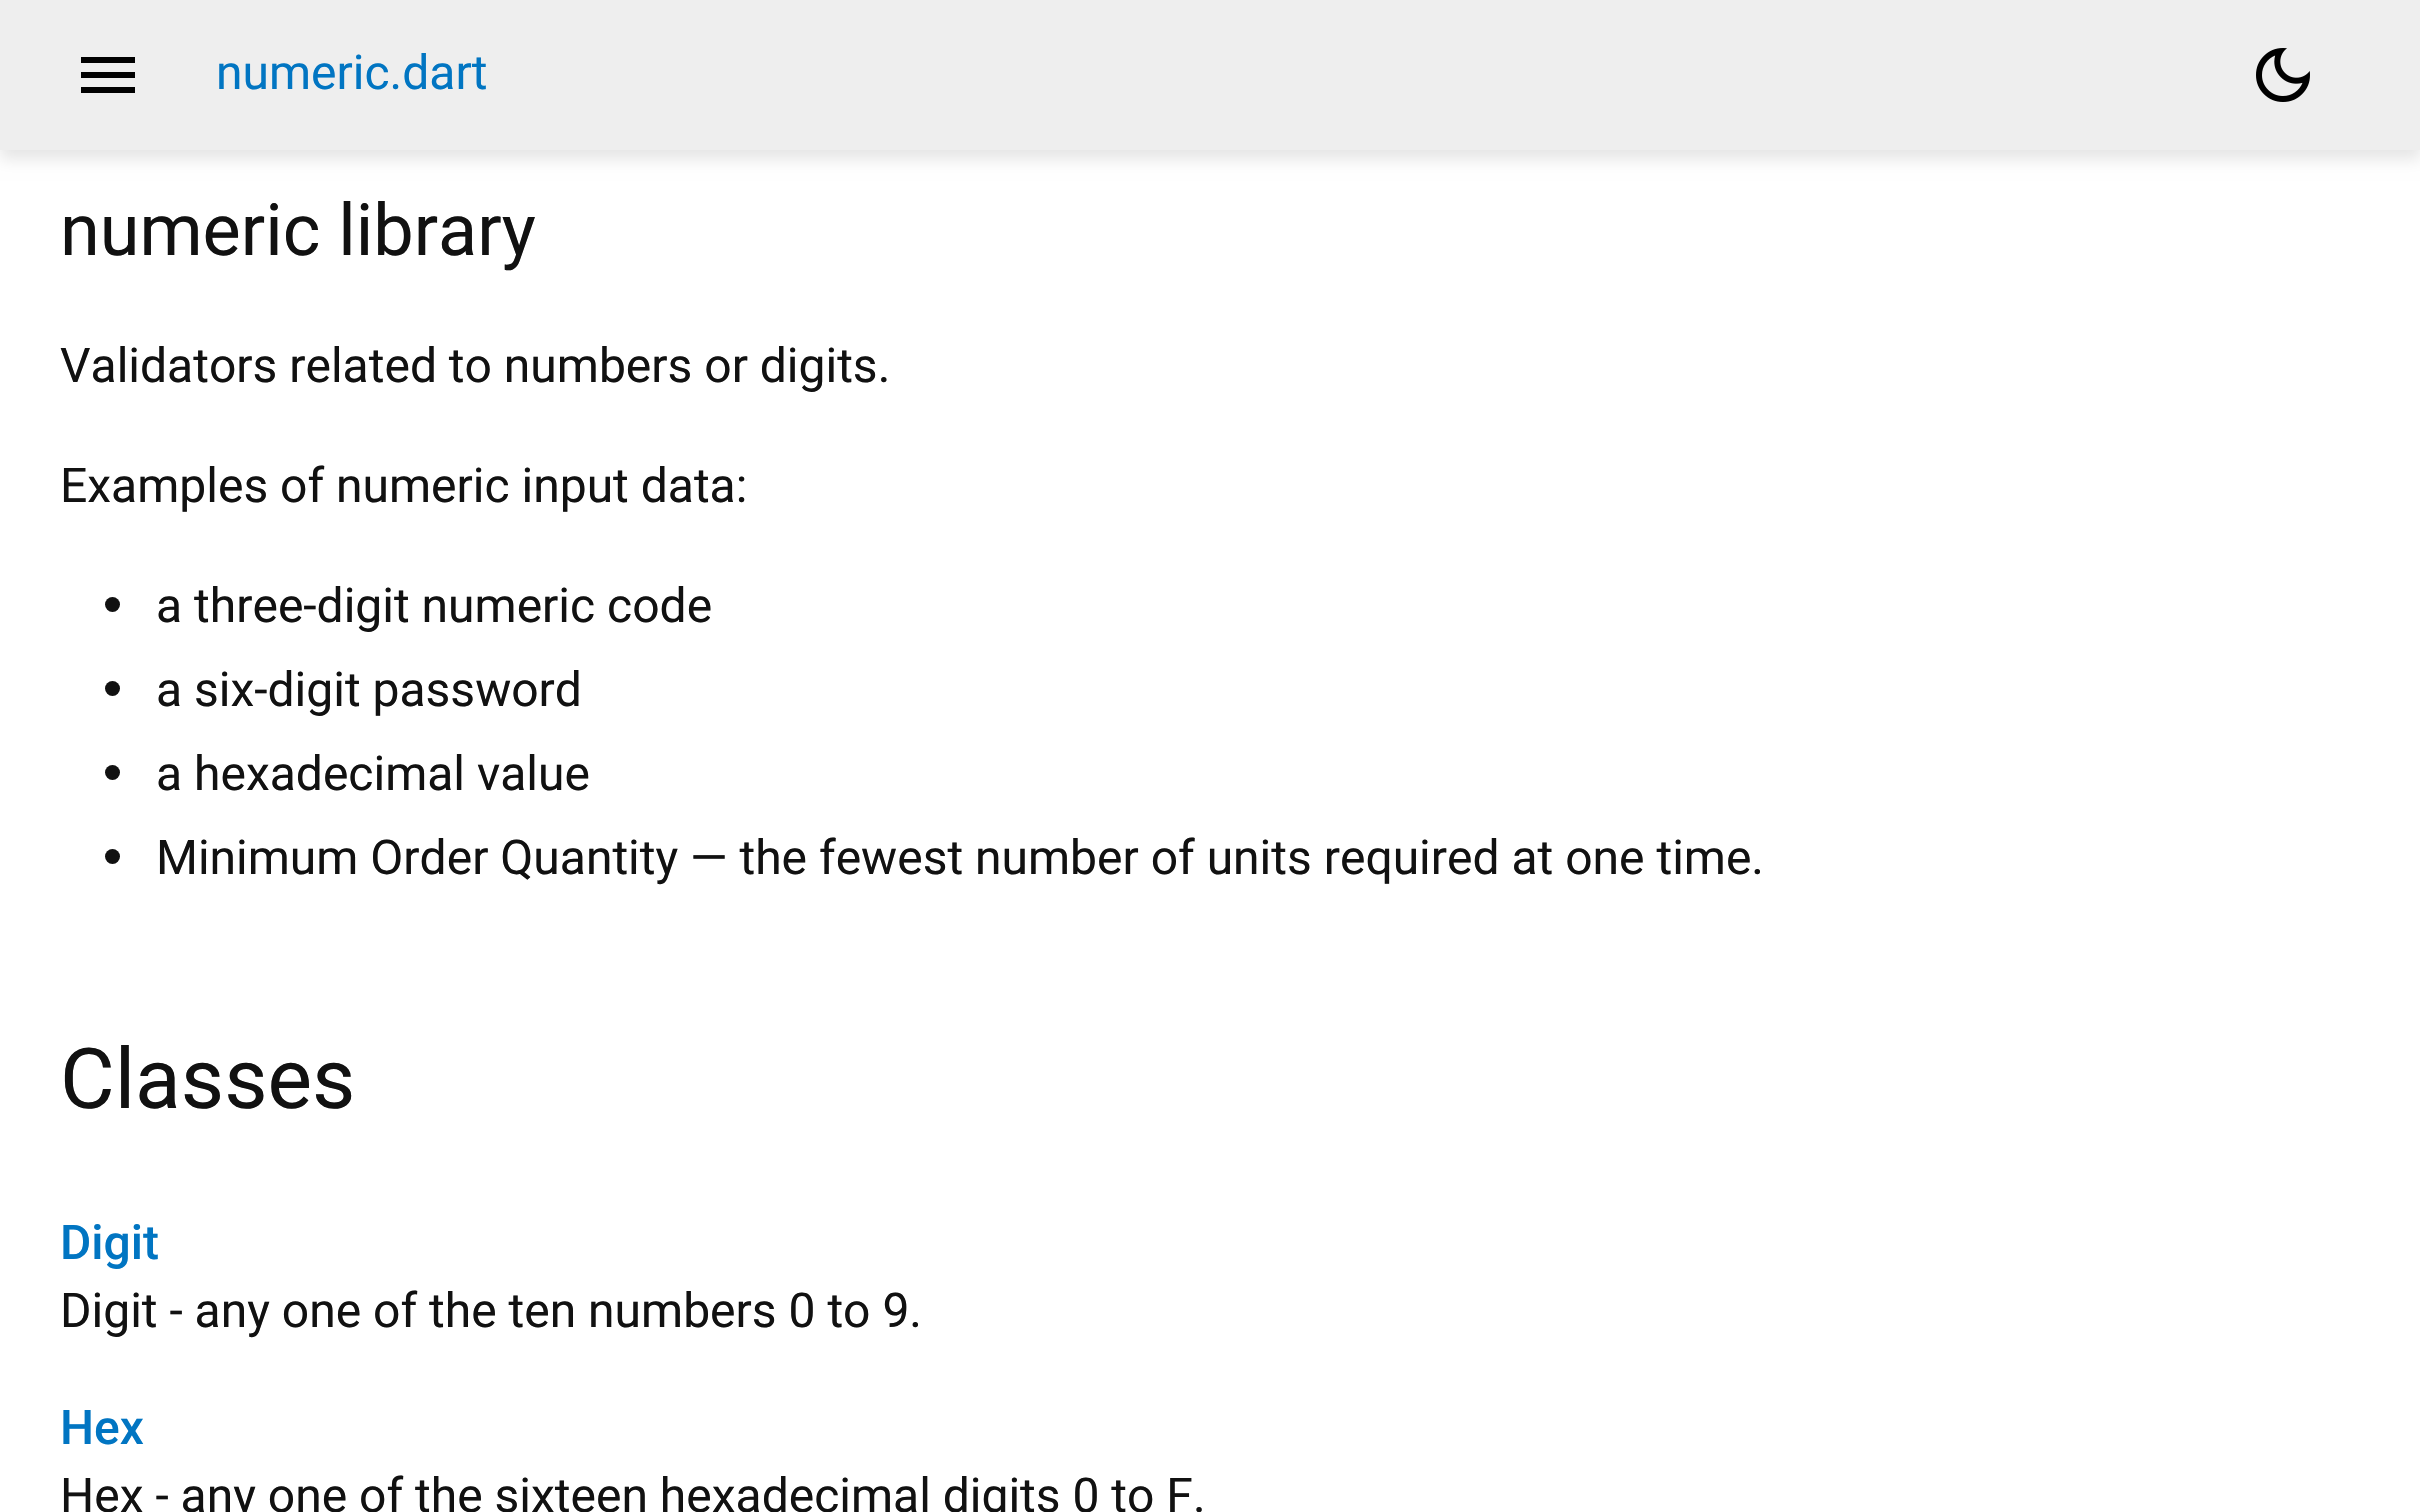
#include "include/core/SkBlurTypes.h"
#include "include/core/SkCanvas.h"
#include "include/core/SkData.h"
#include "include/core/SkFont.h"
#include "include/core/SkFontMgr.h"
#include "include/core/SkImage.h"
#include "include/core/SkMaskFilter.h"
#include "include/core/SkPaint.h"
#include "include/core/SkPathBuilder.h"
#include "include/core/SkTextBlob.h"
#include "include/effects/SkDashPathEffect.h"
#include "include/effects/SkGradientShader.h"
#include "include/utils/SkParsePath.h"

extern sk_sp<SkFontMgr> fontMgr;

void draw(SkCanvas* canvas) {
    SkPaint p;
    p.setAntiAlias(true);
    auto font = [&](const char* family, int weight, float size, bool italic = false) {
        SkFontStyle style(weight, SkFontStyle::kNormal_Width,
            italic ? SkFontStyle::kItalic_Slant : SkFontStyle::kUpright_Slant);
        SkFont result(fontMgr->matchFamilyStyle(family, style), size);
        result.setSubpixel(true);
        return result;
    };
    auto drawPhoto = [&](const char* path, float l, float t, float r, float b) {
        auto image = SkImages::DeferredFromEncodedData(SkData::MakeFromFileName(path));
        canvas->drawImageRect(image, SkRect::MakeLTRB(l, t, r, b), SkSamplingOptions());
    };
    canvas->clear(0xFFFFFFFF);
    p.setColor(0x1A000000);
    p.setMaskFilter(SkMaskFilter::MakeBlur(kNormal_SkBlurStyle, 7.5f));
    canvas->drawRect(SkRect::MakeLTRB(0, 9, 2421, 159), p);
    p.setMaskFilter(nullptr);
    p.setColor(0xFFEEEEEE);
    canvas->drawRect(SkRect::MakeLTRB(0, 0, 2420, 150), p);
    p.setColor(0xFF000000);
    canvas->drawPath(SkPathBuilder().moveTo(81, 93).lineTo(81, 87).lineTo(135, 87).lineTo(135, 93).close().moveTo(81, 78).lineTo(81, 72).lineTo(135, 72).lineTo(135, 78).close().moveTo(81, 63).lineTo(81, 57).lineTo(135, 57).lineTo(135, 63).close().detach(), p);
    auto font1 = font("Roboto", 400, 48);
    p.setColor(0xFF0175C2);
    canvas->drawString("numeric.dart", 216, 89, font1, p);
    drawPhoto("media/1.png", 2256, 48, 2310, 102);
    auto font2 = font("Roboto", 400, 72);
    p.setColor(0xFF111111);
    canvas->drawString("numeric library", 60, 255, font2, p);
    canvas->drawString("Validators related to numbers or digits.", 60, 382, font1, p);
    canvas->drawString("Examples of numeric input data:", 60, 502, font1, p);
    canvas->drawCircle(112.5f, 604.5f, 7.5f, p);
    canvas->drawString("a three-digit numeric code", 156, 622, font1, p);
    canvas->drawCircle(112.5f, 688.5f, 7.5f, p);
    canvas->drawString("a six-digit password", 156, 706, font1, p);
    canvas->drawCircle(112.5f, 772.5f, 7.5f, p);
    canvas->drawString("a hexadecimal value", 156, 790, font1, p);
    canvas->drawCircle(112.5f, 856.5f, 7.5f, p);
    canvas->drawString("Minimum Order Quantity — the fewest number of units required at one time.", 156, 874, font1, p);
    auto font3 = font("Roboto", 400, 84);
    canvas->drawString("Classes", 60, 1108, font3, p);
    auto font4 = font("Roboto", 500, 48);
    p.setColor(0xFF0175C2);
    canvas->drawString("Digit", 60, 1259, font4, p);
    p.setColor(0xFF111111);
    canvas->drawString("Digit - any one of the ten numbers 0 to 9.", 60, 1327, font1, p);
    p.setColor(0xFF0175C2);
    canvas->drawString("Hex", 60, 1444, font4, p);
    p.setColor(0xFF111111);
    canvas->drawString("Hex - any one of the sixteen hexadecimal digits 0 to F.", 60, 1512, font1, p);
}
